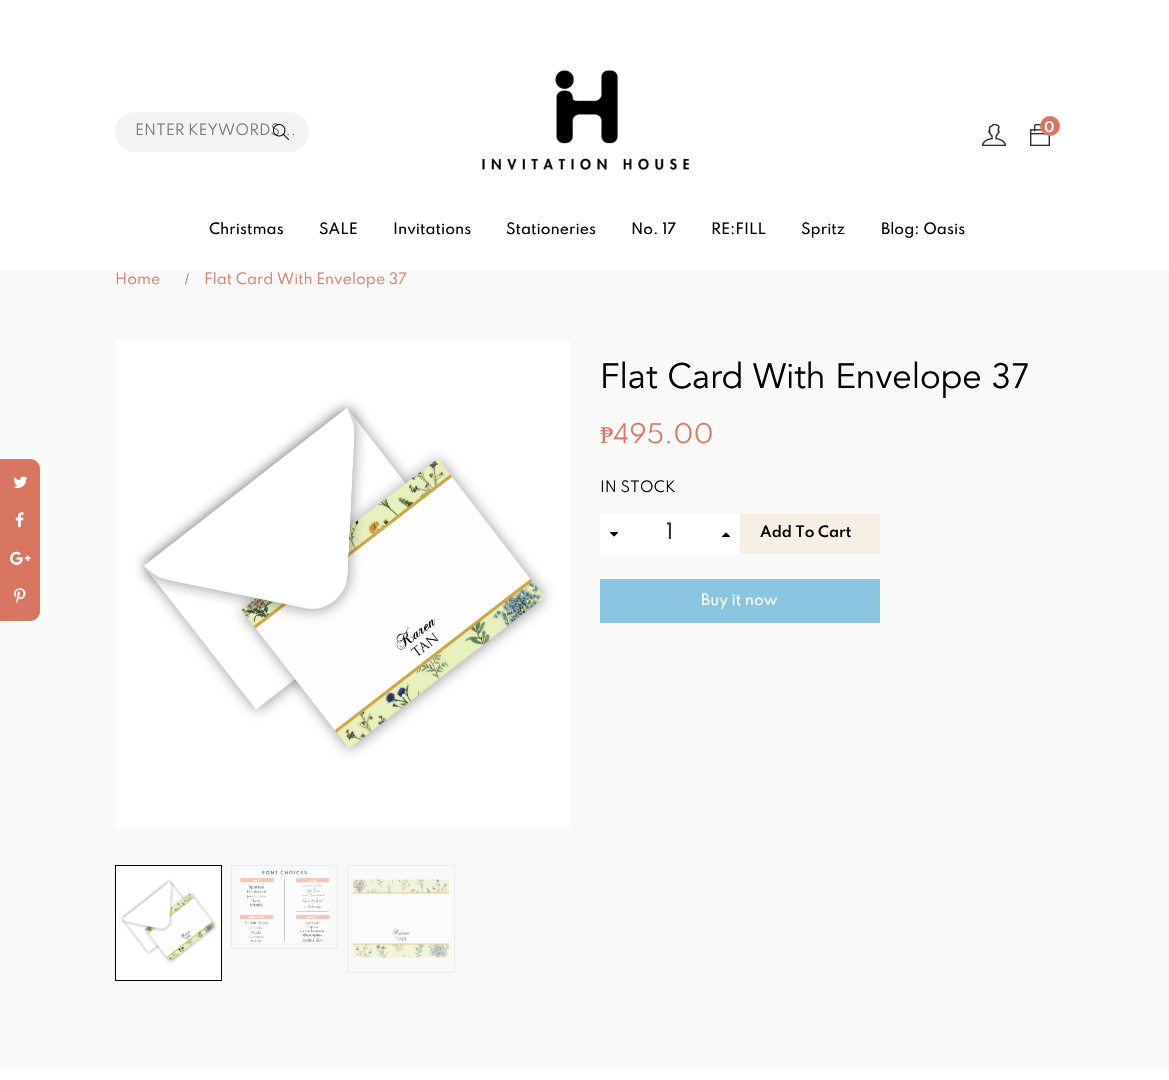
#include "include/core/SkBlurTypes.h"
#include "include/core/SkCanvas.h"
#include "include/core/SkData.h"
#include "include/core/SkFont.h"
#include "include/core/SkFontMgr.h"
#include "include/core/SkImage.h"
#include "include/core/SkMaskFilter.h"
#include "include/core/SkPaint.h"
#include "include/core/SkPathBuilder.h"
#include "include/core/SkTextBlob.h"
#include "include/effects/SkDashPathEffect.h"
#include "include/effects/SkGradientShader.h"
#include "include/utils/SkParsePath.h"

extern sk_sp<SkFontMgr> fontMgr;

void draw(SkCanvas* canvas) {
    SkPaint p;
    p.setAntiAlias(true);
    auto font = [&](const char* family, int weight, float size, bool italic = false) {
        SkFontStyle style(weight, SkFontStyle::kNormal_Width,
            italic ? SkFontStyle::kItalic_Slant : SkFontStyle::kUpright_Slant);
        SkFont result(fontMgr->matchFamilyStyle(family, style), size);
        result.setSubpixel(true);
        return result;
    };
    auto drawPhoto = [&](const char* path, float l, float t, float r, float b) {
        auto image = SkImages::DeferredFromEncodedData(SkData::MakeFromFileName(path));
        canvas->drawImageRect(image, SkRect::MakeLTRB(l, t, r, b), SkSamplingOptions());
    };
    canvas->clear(0xFFFFFFFF);
    p.setColor(0xFFF3F3F3);
    canvas->drawRoundRect(SkRect::MakeLTRB(115, 112, 309, 152), 20, 20, p);
    auto font1 = font("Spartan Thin", 400, 14);
    p.setColor(0xFF757575);
    canvas->drawString("ENTER KEYWORDS...", 135, 135, font1, p);
    drawPhoto("media/1.png", 273, 124, 289, 140);
    drawPhoto("media/2.png", 482, 70, 689, 171);
    drawPhoto("media/3.png", 982, 124, 1006, 146);
    drawPhoto("media/4.png", 1030, 124, 1050, 146);
    p.setColor(0xFFD97661);
    canvas->drawCircle(1050, 126, 10, p);
    auto font2 = font("Spartan Thin", 600, 13);
    p.setColor(0xFFFCFCFC);
    canvas->drawString("0", 1044, 132, font2, p);
    auto font3 = font("Spartan Thin", 500, 14);
    p.setColor(0xFF000000);
    {
        const struct { const char* s; float x, y; } items[] = {
            {"Christmas", 209, 234},
            {"SALE", 319, 234},
            {"Invitations", 393, 234},
            {"Stationeries", 506, 234},
            {"No. 17", 631, 234},
            {"RE:FILL", 711, 234},
            {"Spritz", 801, 234},
            {"Blog: Oasis", 881, 234},
        };
        for (auto [s, x, y] : items) {
            canvas->drawString(s, x, y, font3, p);
        }
    }
    p.setColor(0xFFF9F9F9);
    canvas->drawRect(SkRect::MakeLTRB(0, 270, 1169, 1068), p);
    p.setColor(0xFFD97661);
    canvas->drawPath(SkPathBuilder().moveTo(0, 459).lineTo(30, 459).cubicTo(35.5f, 459, 40, 463.5f, 40, 469).lineTo(40, 611).cubicTo(40, 616.5f, 35.5f, 621, 30, 621).lineTo(0, 621).close().detach(), p);
    drawPhoto("media/5.png", 13, 476, 28, 488);
    drawPhoto("media/6.png", 15, 512, 24, 528);
    drawPhoto("media/7.png", 10, 551, 31, 565);
    drawPhoto("media/8.png", 14, 588, 26, 604);
    canvas->drawString("Home", 115, 284, font1, p);
    auto font4 = font("Liberation Sans", 400, 14);
    p.setColor(0xFF999999);
    canvas->drawString("/", 185, 284, font4, p);
    p.setColor(0xFFD97661);
    canvas->drawString("Flat Card With Envelope 37", 204, 284, font1, p);
    drawPhoto("media/9.png", 115, 341, 570, 828);
    p.setStyle(SkPaint::kStroke_Style);
    p.setStrokeWidth(1);
    p.setColor(0xFF000000);
    canvas->drawRect(SkRect::MakeLTRB(115.5f, 865.5f, 221.5f, 980.5f), p);
    drawPhoto("media/10.png", 116, 866, 221, 980);
    p.setColor(0xFFEBEBEB);
    canvas->drawRect(SkRect::MakeLTRB(231.5f, 865.5f, 337.5f, 948.5f), p);
    drawPhoto("media/11.png", 239, 870, 330, 942);
    canvas->drawRect(SkRect::MakeLTRB(347.5f, 865.5f, 454.5f, 972.5f), p);
    drawPhoto("media/12.png", 352, 879, 450, 958);
    auto font5 = font("Avenir", 400, 35);
    p.setStyle(SkPaint::kFill_Style);
    p.setColor(0xFF000000);
    canvas->drawString("Flat Card With Envelope 37", 600, 388, font5, p);
    auto font6 = font("Liberation Serif", 400, 24);
    p.setColor(0xFFD97661);
    canvas->drawString("₱", 600, 443, font6, p);
    auto font7 = font("Spartan Thin", 400, 24);
    canvas->drawString("495.00", 613, 443, font7, p);
    p.setColor(0xFF000000);
    canvas->drawString("IN STOCK", 600, 492, font1, p);
    p.setColor(0xFFFFFFFF);
    canvas->drawRect(SkRect::MakeLTRB(600, 514, 740, 554), p);
    drawPhoto("media/13.png", 610, 532, 618, 537);
    auto font8 = font("Spartan Thin", 500, 20);
    p.setColor(0xFF333333);
    canvas->drawString("1", 666, 539, font8, p);
    drawPhoto("media/14.png", 722, 532, 730, 537);
    p.setColor(0xFFF5EFE4);
    canvas->drawRect(SkRect::MakeLTRB(740, 514, 880, 554), p);
    auto font9 = font("Spartan Thin", 600, 14);
    p.setColor(0xFF000000);
    canvas->drawString("Add To Cart", 760, 537, font9, p);
    p.setColor(0xFF89C5E0);
    canvas->drawRect(SkRect::MakeLTRB(600, 579, 880, 623), p);
    p.setColor(0xFFFCFCFC);
    canvas->drawString("Buy it now", 701, 605, font3, p);
}
